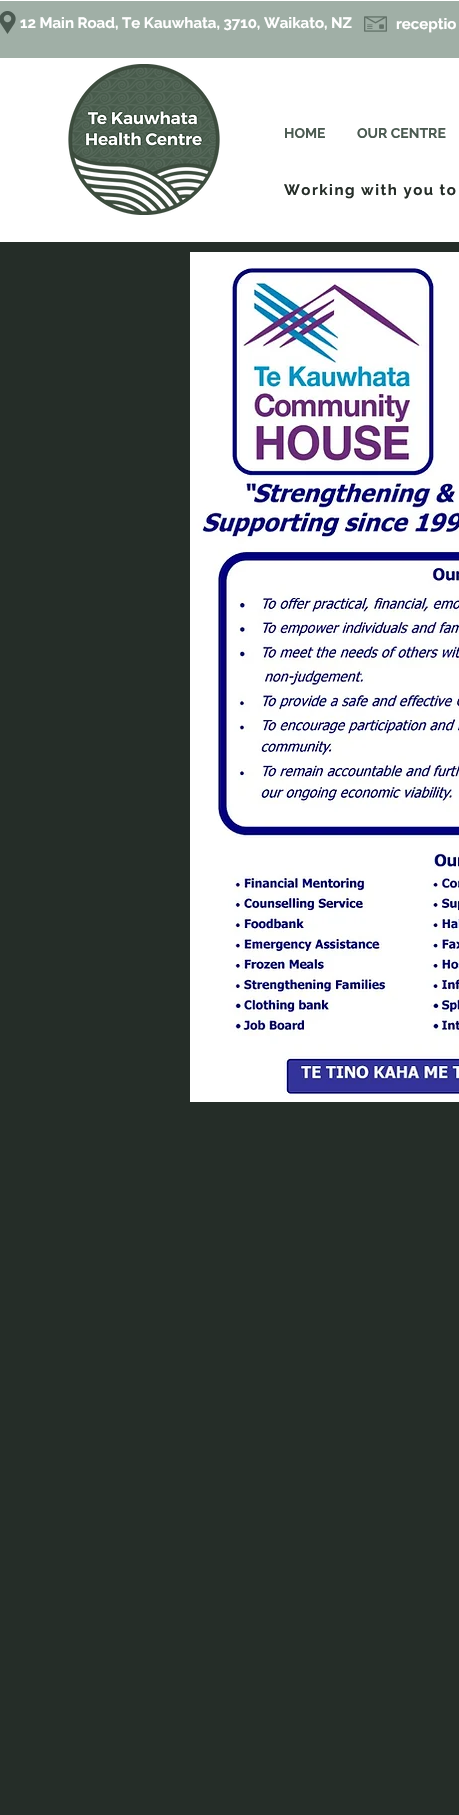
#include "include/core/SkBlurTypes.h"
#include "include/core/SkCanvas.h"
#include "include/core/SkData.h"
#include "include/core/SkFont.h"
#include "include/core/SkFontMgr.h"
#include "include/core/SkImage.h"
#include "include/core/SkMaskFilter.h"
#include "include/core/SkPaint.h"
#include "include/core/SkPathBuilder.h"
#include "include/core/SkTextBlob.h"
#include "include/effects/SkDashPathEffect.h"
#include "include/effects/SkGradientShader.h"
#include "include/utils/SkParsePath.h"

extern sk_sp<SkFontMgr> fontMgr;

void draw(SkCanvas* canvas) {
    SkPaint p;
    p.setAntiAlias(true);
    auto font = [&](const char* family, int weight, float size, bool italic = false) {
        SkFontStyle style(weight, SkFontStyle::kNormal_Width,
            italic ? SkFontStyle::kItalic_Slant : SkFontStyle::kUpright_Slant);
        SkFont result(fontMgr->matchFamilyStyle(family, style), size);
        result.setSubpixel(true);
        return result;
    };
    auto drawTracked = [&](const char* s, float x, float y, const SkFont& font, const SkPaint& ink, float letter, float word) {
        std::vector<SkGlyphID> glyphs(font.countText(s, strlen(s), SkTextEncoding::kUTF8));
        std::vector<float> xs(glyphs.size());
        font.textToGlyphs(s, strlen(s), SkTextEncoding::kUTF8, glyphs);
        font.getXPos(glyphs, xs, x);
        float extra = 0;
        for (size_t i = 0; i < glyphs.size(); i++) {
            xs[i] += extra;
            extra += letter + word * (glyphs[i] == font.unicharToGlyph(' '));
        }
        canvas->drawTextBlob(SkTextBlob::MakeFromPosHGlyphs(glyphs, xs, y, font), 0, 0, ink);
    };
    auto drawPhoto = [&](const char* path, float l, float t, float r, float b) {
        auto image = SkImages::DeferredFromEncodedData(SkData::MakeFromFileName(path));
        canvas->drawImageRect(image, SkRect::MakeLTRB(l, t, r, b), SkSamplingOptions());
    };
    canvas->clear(0xFF252D28);
    p.setColor(0xFFFFFFFF);
    canvas->drawRect(SkRect::MakeLTRB(0, 0, 459, 242), p);
    p.setColor(0xFFA0AFA6);
    canvas->drawRect(SkRect::MakeLTRB(0, 1, 459, 58), p);
    drawPhoto("media/1.png", 0, 11, 16, 34);
    auto font1 = font("Raleway", 700, 15);
    p.setColor(0xFFFFFFFF);
    canvas->drawString("12 Main Road, Te Kauwhata, 3710, Waikato, NZ", 20, 28, font1, p);
    drawPhoto("media/2.png", 364, 16, 387, 32);
    canvas->drawString("receptio", 396, 29, font1, p);
    drawPhoto("media/3.png", 68, 64, 220, 215);
    auto font2 = font("Raleway", 700, 14);
    p.setColor(0xFF4B5A51);
    canvas->drawString("HOME", 284, 138, font2, p);
    canvas->drawString("OUR CENTRE", 357, 138, font2, p);
    p.setColor(0xFF252D28);
    drawTracked("Working with you to", 284, 195, font1, p, 1.5f, 0);
    drawPhoto("media/4.png", 190, 252, 459, 1102);
}
